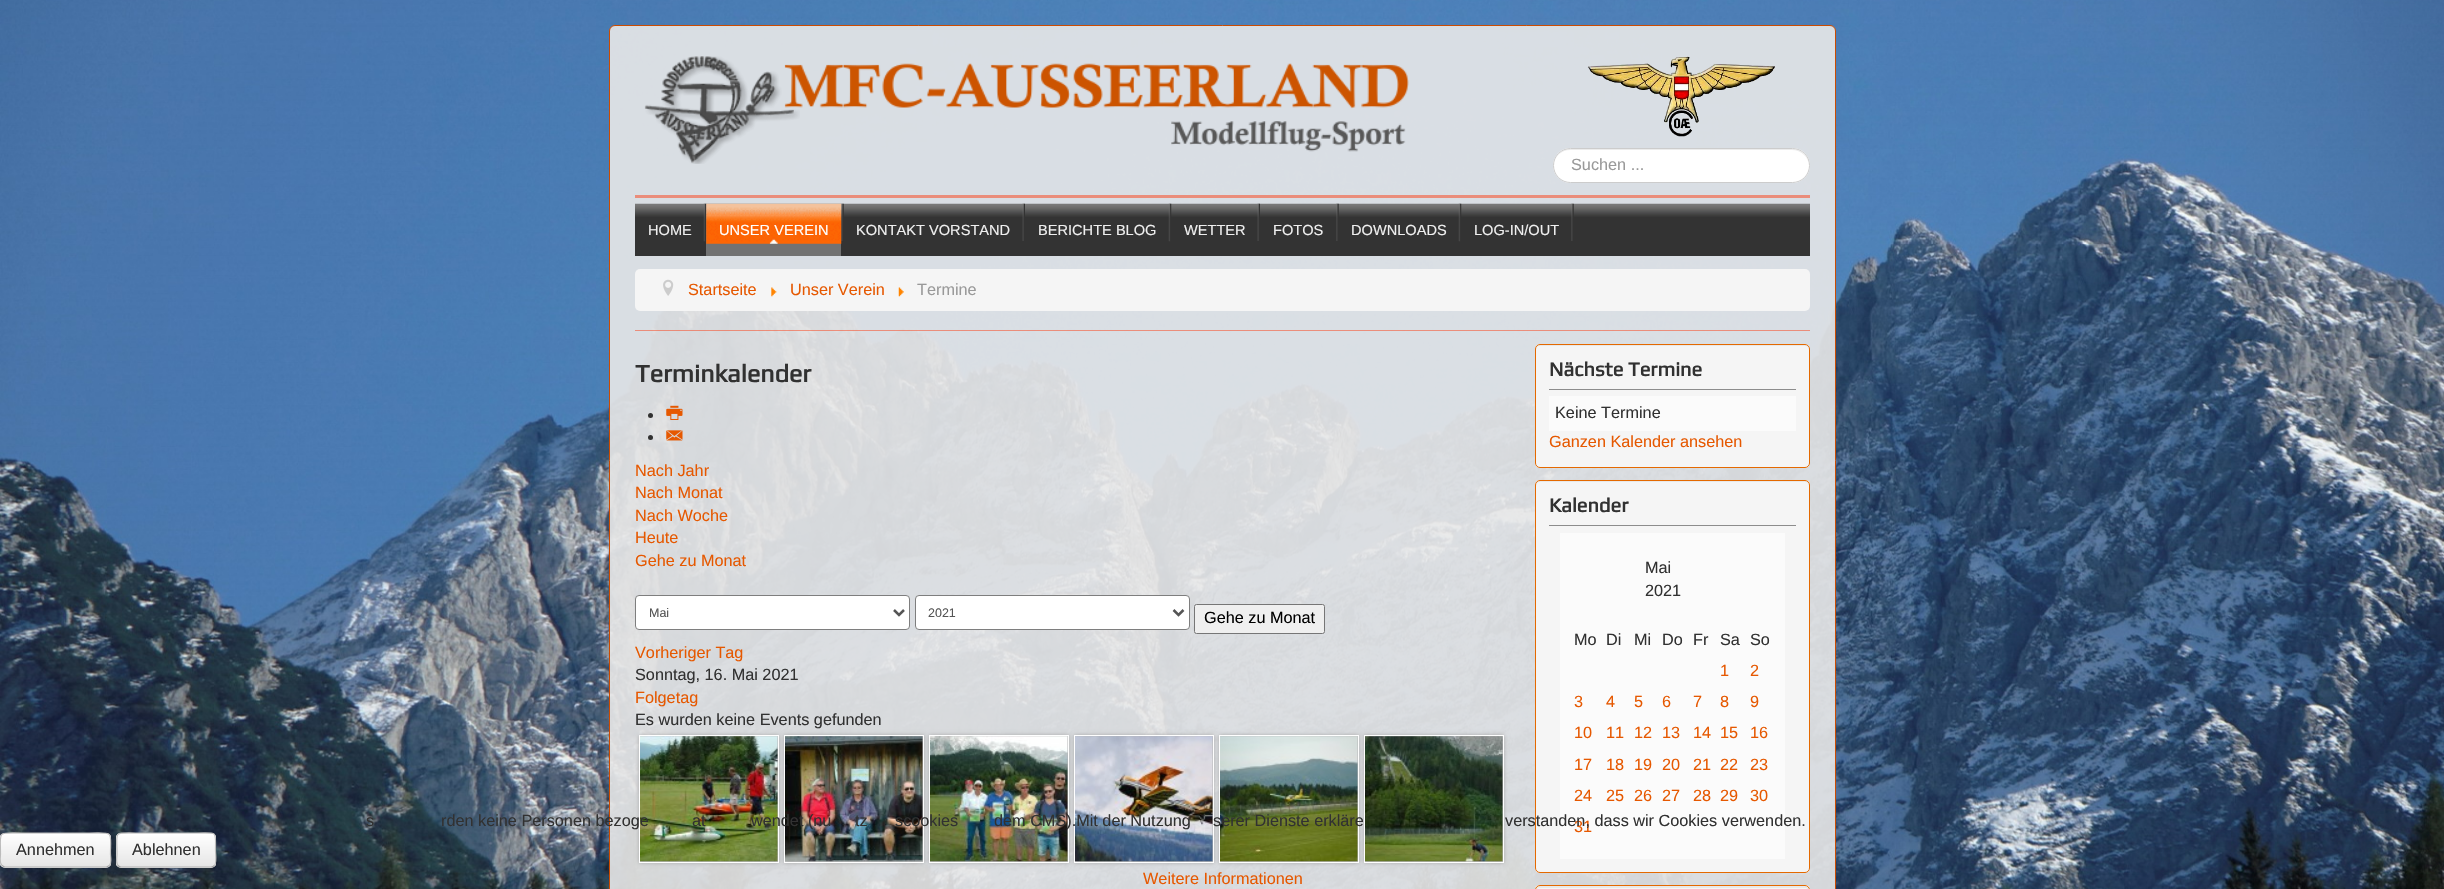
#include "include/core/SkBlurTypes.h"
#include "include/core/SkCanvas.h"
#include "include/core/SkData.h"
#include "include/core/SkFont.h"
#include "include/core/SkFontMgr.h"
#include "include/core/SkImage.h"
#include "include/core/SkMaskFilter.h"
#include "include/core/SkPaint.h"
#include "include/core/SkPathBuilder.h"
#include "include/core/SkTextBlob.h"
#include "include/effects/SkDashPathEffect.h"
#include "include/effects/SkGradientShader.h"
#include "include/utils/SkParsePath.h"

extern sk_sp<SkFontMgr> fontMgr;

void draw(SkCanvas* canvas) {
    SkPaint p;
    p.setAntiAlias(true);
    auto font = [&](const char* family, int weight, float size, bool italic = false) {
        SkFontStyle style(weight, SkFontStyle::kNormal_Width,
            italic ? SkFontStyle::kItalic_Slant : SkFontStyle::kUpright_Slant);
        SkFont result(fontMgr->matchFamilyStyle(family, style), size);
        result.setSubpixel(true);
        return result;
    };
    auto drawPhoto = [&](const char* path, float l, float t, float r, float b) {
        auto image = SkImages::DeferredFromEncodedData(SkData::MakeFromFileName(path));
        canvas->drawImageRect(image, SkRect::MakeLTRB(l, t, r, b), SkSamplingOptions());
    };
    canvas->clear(0xFFFFFFFF);
    drawPhoto("media/1.png", 0, 0, 2444, 889);
    p.setColor(0xE6E8E8E8);
    canvas->drawRoundRect(SkRect::MakeLTRB(609.5f, 25.5f, 1835.5f, 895.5f), 5.5f, 5.5f, p);
    p.setStyle(SkPaint::kStroke_Style);
    p.setStrokeWidth(1);
    p.setColor(0xFFCC4B00);
    canvas->drawRoundRect(SkRect::MakeLTRB(609.5f, 25.5f, 1835.5f, 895.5f), 5.5f, 5.5f, p);
    drawPhoto("media/2.png", 644, 56, 1409, 164);
    drawPhoto("media/3.png", 1587, 56, 1775, 137);
    p.setStyle(SkPaint::kFill_Style);
    p.setColor(0xFFFFFFFF);
    canvas->drawRoundRect(SkRect::MakeLTRB(1553, 148, 1810, 183), 17.5f, 17.5f, p);
    p.setColor(0xFFECECEC);
    canvas->drawPath(SkPathBuilder().moveTo(1570, 150).lineTo(1792, 150).cubicTo(1801, 150, 1809, 157, 1809, 166).cubicTo(1809, 157, 1802, 149, 1793, 149).lineTo(1570, 149).cubicTo(1561, 149, 1554, 157, 1554, 165).cubicTo(1554, 157, 1561, 150, 1570, 150).close().detach(), p);
    p.setStyle(SkPaint::kStroke_Style);
    p.setColor(0xFFCCCCCC);
    canvas->drawRoundRect(SkRect::MakeLTRB(1553.5f, 148.5f, 1809.5f, 182.5f), 17, 17, p);
    auto font1 = font("Liberation Sans", 400, 16.25f);
    p.setStyle(SkPaint::kFill_Style);
    p.setColor(0xFF999999);
    canvas->drawString("Suchen ...", 1571, 170, font1, p);
    {
        const struct { float l, t, r, b; SkColor color; } items[] = {
            {635, 195, 1810, 198, 0xFFEA8D7B},
            {635, 330, 1810, 331, 0x75FF2D00},
            {635, 217, 1810, 256, 0xFF333333},
        };
        for (auto [l, t, r, b, color] : items) {
            p.setColor(color);
            canvas->drawRect(SkRect::MakeLTRB(l, t, r, b), p);
        }
    }
    drawPhoto("media/4.png", 635, 203, 1810, 217);
    drawPhoto("media/5.png", 703, 203, 707, 242);
    auto font2 = font("Liberation Sans", 400, 14.6f);
    p.setColor(0xFFEFEFEF);
    canvas->drawString("HOME", 648, 235, font2, p);
    drawPhoto("media/6.png", 841, 203, 844, 241);
    p.setColor(0xFF727272);
    canvas->drawRect(SkRect::MakeLTRB(706, 204, 841, 256), p);
    drawPhoto("media/7.png", 706, 203, 842, 244);
    p.setColor(0xFFFFFFFF);
    canvas->drawString("UNSER VEREIN", 719, 235, font2, p);
    drawPhoto("media/8.png", 1022, 203, 1025, 241);
    p.setColor(0xFFEFEFEF);
    canvas->drawString("KONTAKT VORSTAND", 856, 235, font2, p);
    drawPhoto("media/9.png", 1168, 203, 1172, 242);
    canvas->drawString("BERICHTE BLOG", 1038, 235, font2, p);
    drawPhoto("media/10.png", 1257, 203, 1260, 241);
    canvas->drawString("WETTER", 1184, 235, font2, p);
    drawPhoto("media/11.png", 1336, 203, 1339, 241);
    canvas->drawString("FOTOS", 1273, 235, font2, p);
    drawPhoto("media/12.png", 1458, 203, 1462, 242);
    canvas->drawString("DOWNLOADS", 1351, 235, font2, p);
    drawPhoto("media/13.png", 1571, 203, 1574, 241);
    canvas->drawString("LOG-IN/OUT", 1474, 235, font2, p);
    p.setColor(0xFFF5F5F5);
    canvas->drawRoundRect(SkRect::MakeLTRB(635, 269, 1810, 311), 5, 5, p);
    drawPhoto("media/14.png", 663, 279, 674, 296);
    p.setColor(0xFFE65800);
    canvas->drawString("Startseite", 688, 295, font1, p);
    drawPhoto("media/15.png", 771, 287, 777, 297);
    canvas->drawString("Unser Verein", 790, 295, font1, p);
    drawPhoto("media/16.png", 898, 287, 904, 297);
    p.setColor(0xFF999999);
    canvas->drawString("Termine", 917, 295, font1, p);
    auto font3 = font("Play", 700, 25);
    p.setColor(0xFF313131);
    canvas->drawString("Terminkalender", 635, 382, font3, p);
    canvas->drawCircle(650.5f, 415.5f, 2.5f, p);
    drawPhoto("media/17.png", 666, 405, 683, 420);
    canvas->drawCircle(650.5f, 437.5f, 2.5f, p);
    drawPhoto("media/18.png", 666, 430, 683, 441);
    p.setColor(0xFFE65800);
    {
        const struct { const char* s; float x, y; } items[] = {
            {"Nach Jahr", 635, 476},
            {"Nach Monat", 635, 498},
            {"Nach Woche", 635, 521},
            {"Heute", 635, 543},
            {"Gehe zu Monat", 635, 566},
        };
        for (auto [s, x, y] : items) {
            canvas->drawString(s, x, y, font1, p);
        }
    }
    p.setColor(0xFFFFFFFF);
    canvas->drawRoundRect(SkRect::MakeLTRB(635.5f, 595.5f, 909.5f, 629.5f), 3.5f, 3.5f, p);
    p.setStyle(SkPaint::kStroke_Style);
    p.setColor(0xFF7E7E7E);
    canvas->drawRoundRect(SkRect::MakeLTRB(635.5f, 595.5f, 909.5f, 629.5f), 3.5f, 3.5f, p);
    p.setStrokeWidth(2.5f);
    p.setColor(0xFF555555);
    canvas->drawPath(SkPathBuilder().moveTo(894, 610).lineTo(899, 615).lineTo(904, 610).detach(), p);
    auto font4 = font("Liberation Sans", 400, 12.5f);
    p.setStyle(SkPaint::kFill_Style);
    canvas->drawString("Mai", 649, 617, font4, p);
    p.setColor(0xFFFFFFFF);
    canvas->drawRoundRect(SkRect::MakeLTRB(915.5f, 595.5f, 1189.5f, 629.5f), 3.5f, 3.5f, p);
    p.setStyle(SkPaint::kStroke_Style);
    p.setStrokeWidth(1);
    p.setColor(0xFF7E7E7E);
    canvas->drawRoundRect(SkRect::MakeLTRB(915.5f, 595.5f, 1189.5f, 629.5f), 3.5f, 3.5f, p);
    p.setStrokeWidth(2.5f);
    p.setColor(0xFF555555);
    canvas->drawPath(SkPathBuilder().moveTo(1173.5f, 610).lineTo(1178.5f, 615).lineTo(1183.5f, 610).detach(), p);
    p.setStyle(SkPaint::kFill_Style);
    canvas->drawString("2021", 928, 617, font4, p);
    p.setColor(0xFFEFEFEF);
    canvas->drawRoundRect(SkRect::MakeLTRB(1194.5f, 604.5f, 1324.5f, 633.5f), 2, 2, p);
    p.setStyle(SkPaint::kStroke_Style);
    p.setStrokeWidth(1);
    p.setColor(0xFF767676);
    canvas->drawRoundRect(SkRect::MakeLTRB(1194.5f, 604.5f, 1324.5f, 633.5f), 2, 2, p);
    p.setStyle(SkPaint::kFill_Style);
    p.setColor(0xFF000000);
    canvas->drawString("Gehe zu Monat", 1204, 623, font1, p);
    p.setColor(0xFFE65800);
    canvas->drawString("Vorheriger Tag", 635, 658, font1, p);
    p.setColor(0xFF313131);
    canvas->drawString("Sonntag, 16. Mai 2021", 635, 680, font1, p);
    p.setColor(0xFFE65800);
    canvas->drawString("Folgetag", 635, 703, font1, p);
    p.setColor(0xFFAAAAAA);
    p.setMaskFilter(SkMaskFilter::MakeBlur(kNormal_SkBlurStyle, 2));
    canvas->drawRect(SkRect::MakeLTRB(639, 735, 779, 863), p);
    p.setMaskFilter(nullptr);
    p.setStyle(SkPaint::kStroke_Style);
    p.setColor(0xFFFFFFFF);
    canvas->drawRect(SkRect::MakeLTRB(639.5f, 735.5f, 778.5f, 862.5f), p);
    drawPhoto("media/19.png", 640, 736, 778, 862);
    p.setStyle(SkPaint::kFill_Style);
    p.setColor(0xFFAAAAAA);
    p.setMaskFilter(SkMaskFilter::MakeBlur(kNormal_SkBlurStyle, 2));
    canvas->drawRect(SkRect::MakeLTRB(784, 735, 924, 863), p);
    p.setMaskFilter(nullptr);
    p.setColor(0xFF313131);
    canvas->drawString("Es wurden keine Events gefunden", 635, 725, font1, p);
    p.setStyle(SkPaint::kStroke_Style);
    p.setColor(0xFFFFFFFF);
    canvas->drawRect(SkRect::MakeLTRB(784.5f, 735.5f, 923.5f, 862.5f), p);
    drawPhoto("media/20.png", 785, 736, 923, 862);
    p.setStyle(SkPaint::kFill_Style);
    p.setColor(0xFFAAAAAA);
    p.setMaskFilter(SkMaskFilter::MakeBlur(kNormal_SkBlurStyle, 2));
    canvas->drawRect(SkRect::MakeLTRB(929, 735, 1069, 863), p);
    p.setMaskFilter(nullptr);
    p.setStyle(SkPaint::kStroke_Style);
    p.setColor(0xFFFFFFFF);
    canvas->drawRect(SkRect::MakeLTRB(929.5f, 735.5f, 1068.5f, 862.5f), p);
    drawPhoto("media/21.png", 930, 736, 1068, 862);
    p.setStyle(SkPaint::kFill_Style);
    p.setColor(0xFFAAAAAA);
    p.setMaskFilter(SkMaskFilter::MakeBlur(kNormal_SkBlurStyle, 2));
    canvas->drawRect(SkRect::MakeLTRB(1074, 735, 1214, 863), p);
    p.setMaskFilter(nullptr);
    p.setStyle(SkPaint::kStroke_Style);
    p.setColor(0xFFFFFFFF);
    canvas->drawRect(SkRect::MakeLTRB(1074.5f, 735.5f, 1213.5f, 862.5f), p);
    drawPhoto("media/22.png", 1075, 736, 1213, 862);
    p.setStyle(SkPaint::kFill_Style);
    p.setColor(0xFFAAAAAA);
    p.setMaskFilter(SkMaskFilter::MakeBlur(kNormal_SkBlurStyle, 2));
    canvas->drawRect(SkRect::MakeLTRB(1219, 735, 1359, 863), p);
    p.setMaskFilter(nullptr);
    p.setStyle(SkPaint::kStroke_Style);
    p.setColor(0xFFFFFFFF);
    canvas->drawRect(SkRect::MakeLTRB(1219.5f, 735.5f, 1358.5f, 862.5f), p);
    drawPhoto("media/23.png", 1220, 736, 1358, 862);
    p.setStyle(SkPaint::kFill_Style);
    p.setColor(0xFFAAAAAA);
    p.setMaskFilter(SkMaskFilter::MakeBlur(kNormal_SkBlurStyle, 2));
    canvas->drawRect(SkRect::MakeLTRB(1364, 735, 1504, 863), p);
    p.setMaskFilter(nullptr);
    p.setStyle(SkPaint::kStroke_Style);
    p.setColor(0xFFFFFFFF);
    canvas->drawRect(SkRect::MakeLTRB(1364.5f, 735.5f, 1503.5f, 862.5f), p);
    drawPhoto("media/24.png", 1365, 736, 1503, 862);
    p.setStyle(SkPaint::kFill_Style);
    p.setColor(0xFFF5F5F5);
    canvas->drawRoundRect(SkRect::MakeLTRB(1535, 344, 1810, 468), 5, 5, p);
    p.setColor(0xFFE9E9E9);
    canvas->drawPath(SkPathBuilder().moveTo(1540, 346).lineTo(1805, 346).cubicTo(1807, 346, 1809, 348, 1809, 350).cubicTo(1809, 347, 1808, 345, 1805, 345).lineTo(1540, 345).cubicTo(1537, 345, 1536, 347, 1536, 350).cubicTo(1536, 348, 1538, 346, 1540, 346).close().detach(), p);
    p.setStyle(SkPaint::kStroke_Style);
    p.setColor(0xFFE46900);
    canvas->drawRoundRect(SkRect::MakeLTRB(1535.5f, 344.5f, 1809.5f, 467.5f), 4.5f, 4.5f, p);
    p.setStyle(SkPaint::kFill_Style);
    p.setColor(0xFF8C8C8C);
    canvas->drawRect(SkRect::MakeLTRB(1549, 389, 1796, 390), p);
    auto font5 = font("Play", 700, 20);
    p.setColor(0xFF313131);
    canvas->drawString("Nächste Termine", 1549, 376, font5, p);
    p.setColor(0xFFFBFBFB);
    canvas->drawRect(SkRect::MakeLTRB(1549, 396, 1796, 431), p);
    p.setColor(0xFF313131);
    canvas->drawString("Keine Termine", 1555, 418, font1, p);
    p.setColor(0xFFE65800);
    canvas->drawString("Ganzen Kalender ansehen", 1549, 447, font1, p);
    p.setColor(0xFFF5F5F5);
    canvas->drawRoundRect(SkRect::MakeLTRB(1535, 480, 1810, 873), 5, 5, p);
    p.setColor(0xFFE9E9E9);
    canvas->drawPath(SkPathBuilder().moveTo(1540, 482).lineTo(1805, 482).cubicTo(1807, 482, 1809, 484, 1809, 486).cubicTo(1809, 483, 1808, 481, 1805, 481).lineTo(1540, 481).cubicTo(1537, 481, 1536, 483, 1536, 486).cubicTo(1536, 484, 1538, 482, 1540, 482).close().detach(), p);
    p.setStyle(SkPaint::kStroke_Style);
    p.setColor(0xFFE46900);
    canvas->drawRoundRect(SkRect::MakeLTRB(1535.5f, 480.5f, 1809.5f, 872.5f), 4.5f, 4.5f, p);
    p.setStyle(SkPaint::kFill_Style);
    p.setColor(0xFF8C8C8C);
    canvas->drawRect(SkRect::MakeLTRB(1549, 525, 1796, 526), p);
    p.setColor(0xFF313131);
    canvas->drawString("Kalender", 1549, 512, font5, p);
    p.setColor(0xFFFBFBFB);
    canvas->drawRect(SkRect::MakeLTRB(1560, 533, 1785, 859), p);
    p.setColor(0xFF313131);
    {
        const struct { const char* s; float x, y; } items[] = {
            {"Mai", 1645, 573},
            {"2021", 1645, 596},
            {"Mo", 1574, 645},
            {"Di", 1606, 645},
            {"Mi", 1634, 645},
            {"Do", 1662, 645},
            {"Fr", 1693, 645},
            {"Sa", 1720, 645},
            {"So", 1750, 645},
        };
        for (auto [s, x, y] : items) {
            canvas->drawString(s, x, y, font1, p);
        }
    }
    p.setColor(0xFFE65800);
    {
        const struct { const char* s; float x, y; } items[] = {
            {"1", 1720, 676},
            {"2", 1750, 676},
            {"3", 1574, 707},
            {"4", 1606, 707},
            {"5", 1634, 707},
            {"6", 1662, 707},
            {"7", 1693, 707},
            {"8", 1720, 707},
            {"9", 1750, 707},
            {"10", 1574, 738},
            {"11", 1606, 738},
            {"12", 1634, 738},
            {"13", 1662, 738},
            {"14", 1693, 738},
            {"15", 1720, 738},
            {"16", 1750, 738},
            {"17", 1574, 770},
            {"18", 1606, 770},
            {"19", 1634, 770},
            {"20", 1662, 770},
            {"21", 1693, 770},
            {"22", 1720, 770},
            {"23", 1750, 770},
            {"24", 1574, 801},
            {"25", 1606, 801},
            {"26", 1634, 801},
            {"27", 1662, 801},
            {"28", 1693, 801},
            {"29", 1720, 801},
            {"30", 1750, 801},
            {"31", 1574, 832},
        };
        for (auto [s, x, y] : items) {
            canvas->drawString(s, x, y, font1, p);
        }
    }
    p.setColor(0xFFF5F5F5);
    canvas->drawRoundRect(SkRect::MakeLTRB(1535, 885, 1810, 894), 5, 5, p);
    p.setColor(0xFFE9E9E9);
    canvas->drawPath(SkPathBuilder().moveTo(1540, 888).lineTo(1806, 888).lineTo(1809, 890).lineTo(1809, 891).cubicTo(1809, 888, 1808, 886, 1805, 886).lineTo(1540, 886).cubicTo(1537, 886, 1536, 888, 1536, 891).cubicTo(1536, 889, 1538, 888, 1540, 888).close().detach(), p);
    p.setStyle(SkPaint::kStroke_Style);
    p.setColor(0xFFE46900);
    canvas->drawRoundRect(SkRect::MakeLTRB(1535.5f, 885.5f, 1809.5f, 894.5f), 4.5f, 4.5f, p);
    p.setStyle(SkPaint::kFill_Style);
    p.setColor(0xFF313131);
    {
        const struct { const char* s; float x, y; } items[] = {
            {"s", 366, 826},
            {"rden keine Personen bezoge", 441, 826},
            {"at", 692, 826},
            {"wendet (nu", 751, 826},
            {"tz", 855, 826},
            {"scookies", 895, 826},
            {"dem CMS).Mit der Nutzung", 994, 826},
            {"serer Dienste erkläre", 1213, 826},
            {"verstanden, dass wir Cookies verwenden.", 1505, 826},
        };
        for (auto [s, x, y] : items) {
            canvas->drawString(s, x, y, font1, p);
        }
    }
    p.setColor(0xFFF5F5F5);
    canvas->drawRoundRect(SkRect::MakeLTRB(0, 833, 111, 868), 5, 5, p);
    canvas->save();
    canvas->clipPath(SkPathBuilder().moveTo(5, 833).lineTo(106, 833).cubicTo(109, 833, 111, 835, 111, 838).lineTo(111, 863).cubicTo(111, 866, 109, 868, 106, 868).lineTo(5, 868).cubicTo(2, 868, 0, 866, 0, 863).lineTo(0, 838).cubicTo(0, 835, 2, 833, 5, 833).close().detach(), true);
    {
        const SkColor colors[] = {0xFFFFFFFF, 0xFFE6E6E6};
        const float stops[] = {0, 1};
        const SkPoint ends[] = {{56, 834}, {56, 866}};
        p.setShader(SkGradientShader::MakeLinear(ends, colors, stops, 2, SkTileMode::kClamp));
        p.setAlpha(255);
    }
    canvas->drawRect(SkRect::MakeLTRB(0, 834, 111, 866), p);
    canvas->restore();
    p.setStyle(SkPaint::kStroke_Style);
    p.setStrokeWidth(1.2f);
    p.setShader(nullptr);
    p.setColor(0xFFA2A2A2);
    canvas->drawPath(SkPathBuilder().moveTo(109.5f, 865.5f).lineTo(106.5f, 867).lineTo(4.5f, 867).lineTo(2, 865.5f).detach(), p);
    p.setColor(0xFFBBBBBB);
    canvas->drawPath(SkPathBuilder().moveTo(2, 865.5f).cubicTo(-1, 863, 0.5f, 857.5f, 0.5f, 854).cubicTo(0.5f, 830, -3.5f, 833, 22, 833).lineTo(89.5f, 833).cubicTo(114.5f, 833, 110.5f, 830, 110.5f, 854).cubicTo(110.5f, 857.5f, 112, 863, 109.5f, 865.5f).detach(), p);
    p.setStyle(SkPaint::kFill_Style);
    p.setColor(0xFF313131);
    canvas->drawString("Annehmen", 16, 855, font1, p);
    p.setColor(0xFFF5F5F5);
    canvas->drawRoundRect(SkRect::MakeLTRB(116, 833, 216, 868), 5, 5, p);
    canvas->save();
    canvas->clipPath(SkPathBuilder().moveTo(121, 833).lineTo(211, 833).cubicTo(214, 833, 216, 835, 216, 838).lineTo(216, 863).cubicTo(216, 866, 214, 868, 211, 868).lineTo(121, 868).cubicTo(118, 868, 116, 866, 116, 863).lineTo(116, 838).cubicTo(116, 835, 118, 833, 121, 833).close().detach(), true);
    {
        const SkColor colors[] = {0xFFFFFFFF, 0xFFE6E6E6};
        const float stops[] = {0, 1};
        const SkPoint ends[] = {{166, 834}, {166, 866}};
        p.setShader(SkGradientShader::MakeLinear(ends, colors, stops, 2, SkTileMode::kClamp));
        p.setAlpha(255);
    }
    canvas->drawRect(SkRect::MakeLTRB(116, 834, 216, 866), p);
    canvas->restore();
    p.setStyle(SkPaint::kStroke_Style);
    p.setShader(nullptr);
    p.setColor(0xFFA2A2A2);
    canvas->drawPath(SkPathBuilder().moveTo(214.5f, 865.5f).cubicTo(213.5f, 866.5f, 212.5f, 867, 211, 867).lineTo(121, 867).cubicTo(120, 867, 119, 866.5f, 118, 865.5f).detach(), p);
    p.setColor(0xFFBBBBBB);
    canvas->drawPath(SkPathBuilder().moveTo(118, 865.5f).cubicTo(115.5f, 863, 117, 857.5f, 117, 854).cubicTo(117, 830.5f, 112.5f, 833, 136, 833).lineTo(196, 833).cubicTo(218, 833, 215.5f, 830, 215.5f, 850).cubicTo(215.5f, 853, 217, 863, 214.5f, 865.5f).detach(), p);
    p.setStyle(SkPaint::kFill_Style);
    p.setColor(0xFF313131);
    canvas->drawString("Ablehnen", 132, 855, font1, p);
    p.setColor(0xFFE65800);
    canvas->drawString("Weitere Informationen", 1143, 884, font1, p);
}
